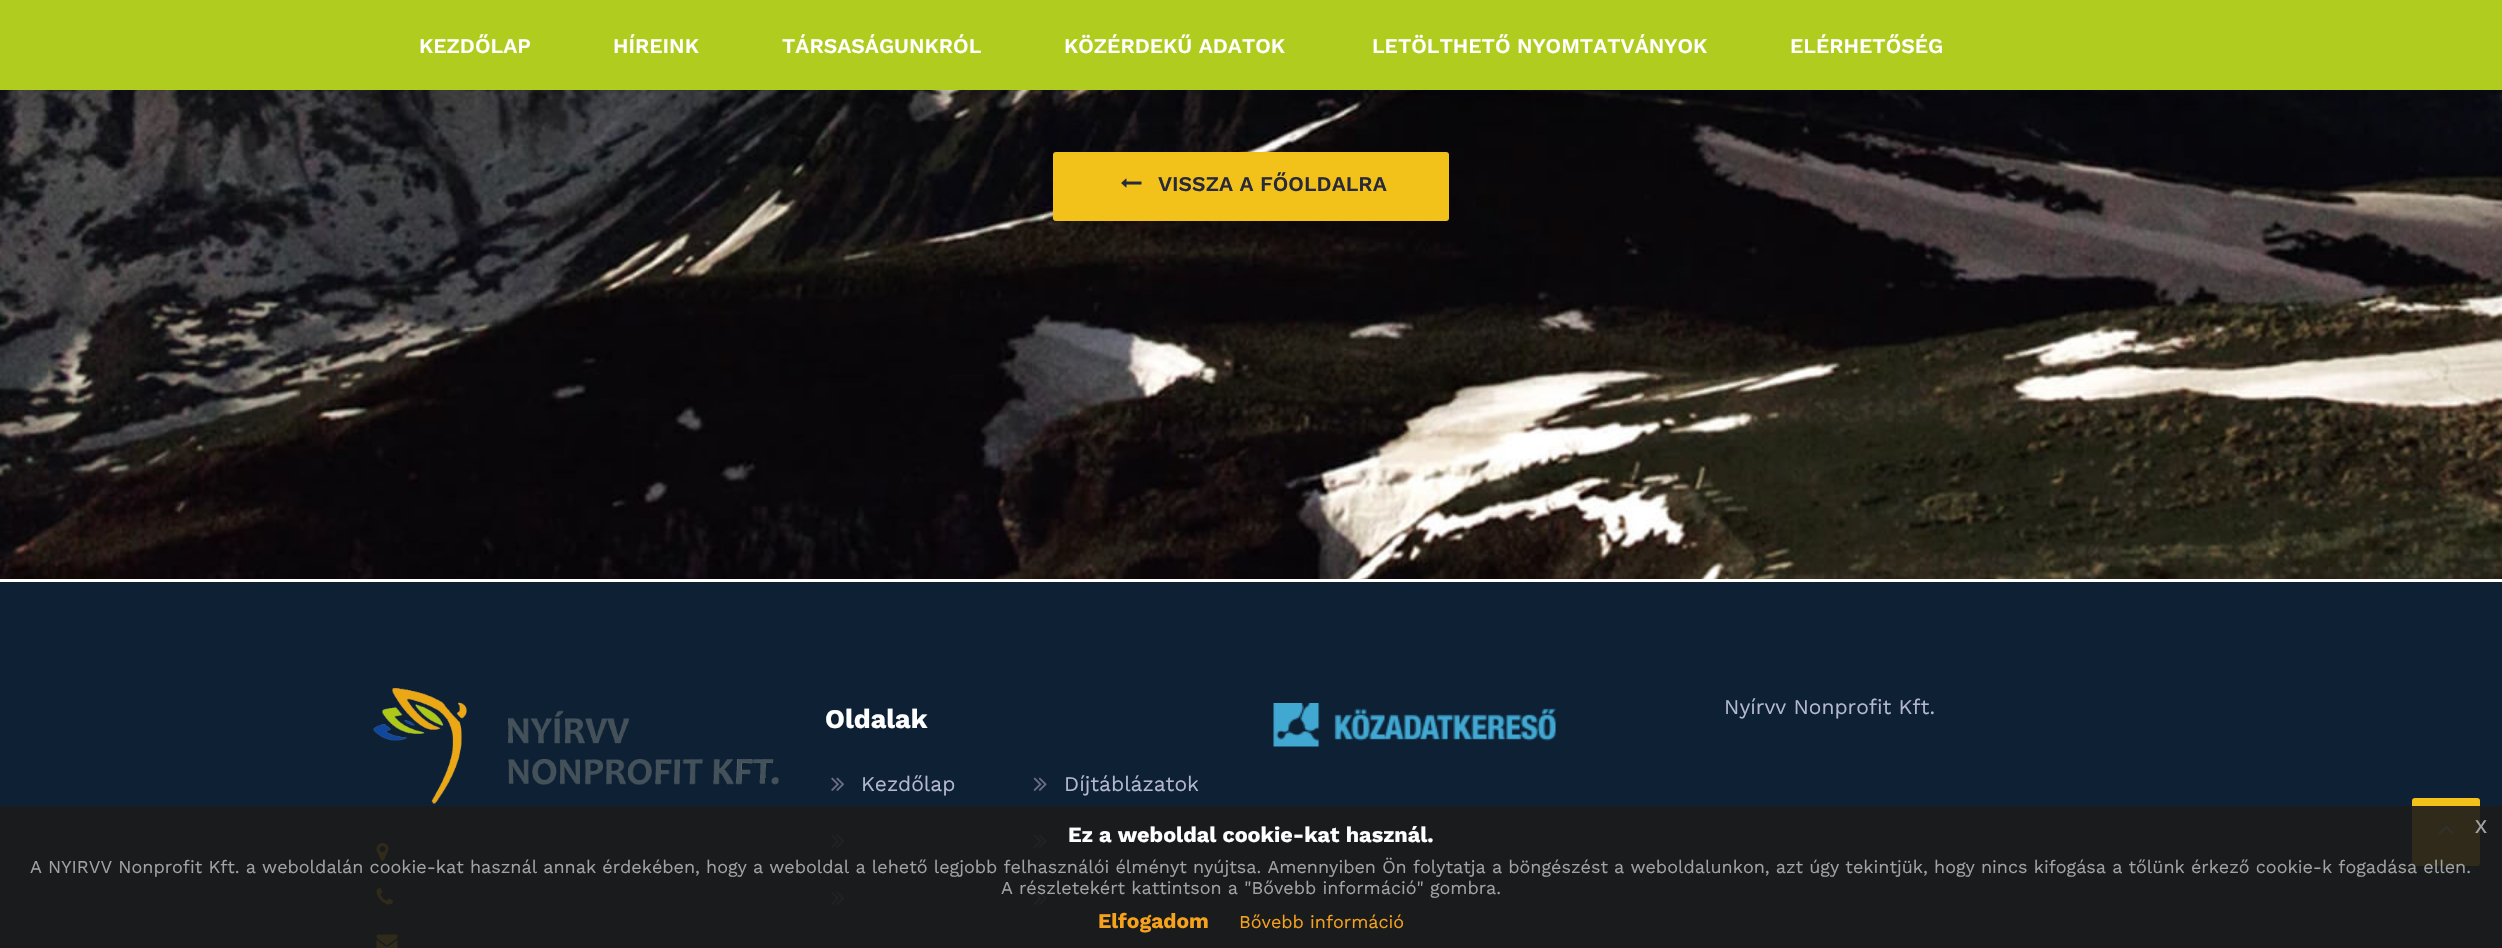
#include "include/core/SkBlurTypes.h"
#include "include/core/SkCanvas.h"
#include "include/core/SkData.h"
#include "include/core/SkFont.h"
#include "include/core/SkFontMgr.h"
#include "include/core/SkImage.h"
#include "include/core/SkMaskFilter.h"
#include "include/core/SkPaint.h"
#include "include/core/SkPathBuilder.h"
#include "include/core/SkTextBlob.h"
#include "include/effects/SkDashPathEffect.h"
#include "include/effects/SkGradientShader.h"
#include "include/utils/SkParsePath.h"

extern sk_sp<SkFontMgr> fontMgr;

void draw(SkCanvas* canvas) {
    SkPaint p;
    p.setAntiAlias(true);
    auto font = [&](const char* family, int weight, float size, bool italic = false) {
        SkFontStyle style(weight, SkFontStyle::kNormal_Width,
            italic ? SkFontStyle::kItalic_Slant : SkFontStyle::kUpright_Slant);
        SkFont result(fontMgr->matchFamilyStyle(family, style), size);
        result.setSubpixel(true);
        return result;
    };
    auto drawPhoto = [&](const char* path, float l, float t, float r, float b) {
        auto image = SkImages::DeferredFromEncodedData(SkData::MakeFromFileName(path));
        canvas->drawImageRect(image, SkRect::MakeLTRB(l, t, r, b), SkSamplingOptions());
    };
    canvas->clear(0xFF0D2034);
    drawPhoto("media/1.png", 0, 90, 2502, 579);
    p.setColor(0xFFF2C21A);
    canvas->drawRoundRect(SkRect::MakeLTRB(1053, 152, 1449, 221), 3, 3, p);
    p.setColor(0x26000000);
    p.setMaskFilter(SkMaskFilter::MakeBlur(kNormal_SkBlurStyle, 20));
    canvas->drawRect(SkRect::MakeLTRB(0, 15, 2502, 105), p);
    p.setMaskFilter(nullptr);
    p.setColor(0xFFB0CC1F);
    canvas->drawRect(SkRect::MakeLTRB(0, 0, 2502, 90), p);
    auto font1 = font("Work Sans", 600, 21);
    p.setColor(0xFFFFFFFF);
    {
        const struct { const char* s; float x, y; } items[] = {
            {"KEZDŐLAP", 419, 53},
            {"HÍREINK", 613, 53},
            {"TÁRSASÁGUNKRÓL", 782, 53},
            {"KÖZÉRDEKŰ ADATOK", 1064, 53},
            {"LETÖLTHETŐ NYOMTATVÁNYOK", 1372, 53},
            {"ELÉRHETŐSÉG", 1790, 53},
        };
        for (auto [s, x, y] : items) {
            canvas->drawString(s, x, y, font1, p);
        }
    }
    canvas->drawRect(SkRect::MakeLTRB(0, 579, 2502, 582), p);
    drawPhoto("media/2.png", 1121, 178, 1142, 188);
    p.setColor(0xFF28293A);
    canvas->drawString("VISSZA A FŐOLDALRA", 1158, 191, font1, p);
    drawPhoto("media/3.png", 373, 688, 779, 804);
    drawPhoto("media/4.png", 376, 843, 389, 861);
    drawPhoto("media/5.png", 376, 888, 393, 905);
    drawPhoto("media/6.png", 376, 934, 398, 948);
    auto font2 = font("Work Sans", 700, 27);
    p.setColor(0xFFFFFFFF);
    canvas->drawString("Oldalak", 825, 728, font2, p);
    drawPhoto("media/7.png", 831, 777, 844, 791);
    auto font3 = font("Work Sans", 400, 21);
    p.setColor(0xFFB5B7D2);
    canvas->drawString("Kezdőlap", 861, 791, font3, p);
    drawPhoto("media/7.png", 831, 834, 844, 848);
    drawPhoto("media/7.png", 831, 891, 844, 905);
    drawPhoto("media/8.png", 1033, 777, 1047, 791);
    canvas->drawString("Díjtáblázatok", 1064, 791, font3, p);
    drawPhoto("media/8.png", 1033, 834, 1047, 848);
    drawPhoto("media/8.png", 1033, 891, 1047, 905);
    drawPhoto("media/9.png", 1273, 703, 1556, 747);
    canvas->drawString("Nyírvv Nonprofit Kft.", 1724, 714, font3, p);
    p.setColor(0xFFF2C21A);
    canvas->drawRoundRect(SkRect::MakeLTRB(2412, 798, 2480, 866), 3, 3, p);
    drawPhoto("media/10.png", 2438, 825, 2454, 835);
    p.setColor(0xE6191919);
    canvas->drawRect(SkRect::MakeLTRB(0, 806, 2502, 948), p);
    auto font4 = font("Work Sans", 700, 21.6f);
    p.setColor(0xFFFFFFFF);
    canvas->drawString("Ez a weboldal cookie-kat használ.", 1068, 842, font4, p);
    auto font5 = font("Liberation Sans", 400, 24);
    p.setColor(0xFFA2A2A2);
    canvas->drawString("x", 2475, 833, font5, p);
    auto font6 = font("Work Sans", 400, 18);
    canvas->drawString("A NYIRVV Nonprofit Kft. a weboldalán cookie-kat használ annak érdekében, hogy a weboldal a lehető legjobb felhasználói élményt nyújtsa. Amennyiben Ön folytatja a böngészést a weboldalunkon, azt úgy tekintjük, hogy nincs kifogása a tőlünk érkező cookie-k fogadása ellen.", 30, 873, font6, p);
    canvas->drawString("A részletekért kattintson a \"Bővebb információ\" gombra.", 1001, 894, font6, p);
    auto font7 = font("Work Sans", 700, 21);
    p.setColor(0xFFF6A21D);
    canvas->drawString("Elfogadom", 1098, 928, font7, p);
    canvas->drawString("Bővebb információ", 1239, 928, font6, p);
}
